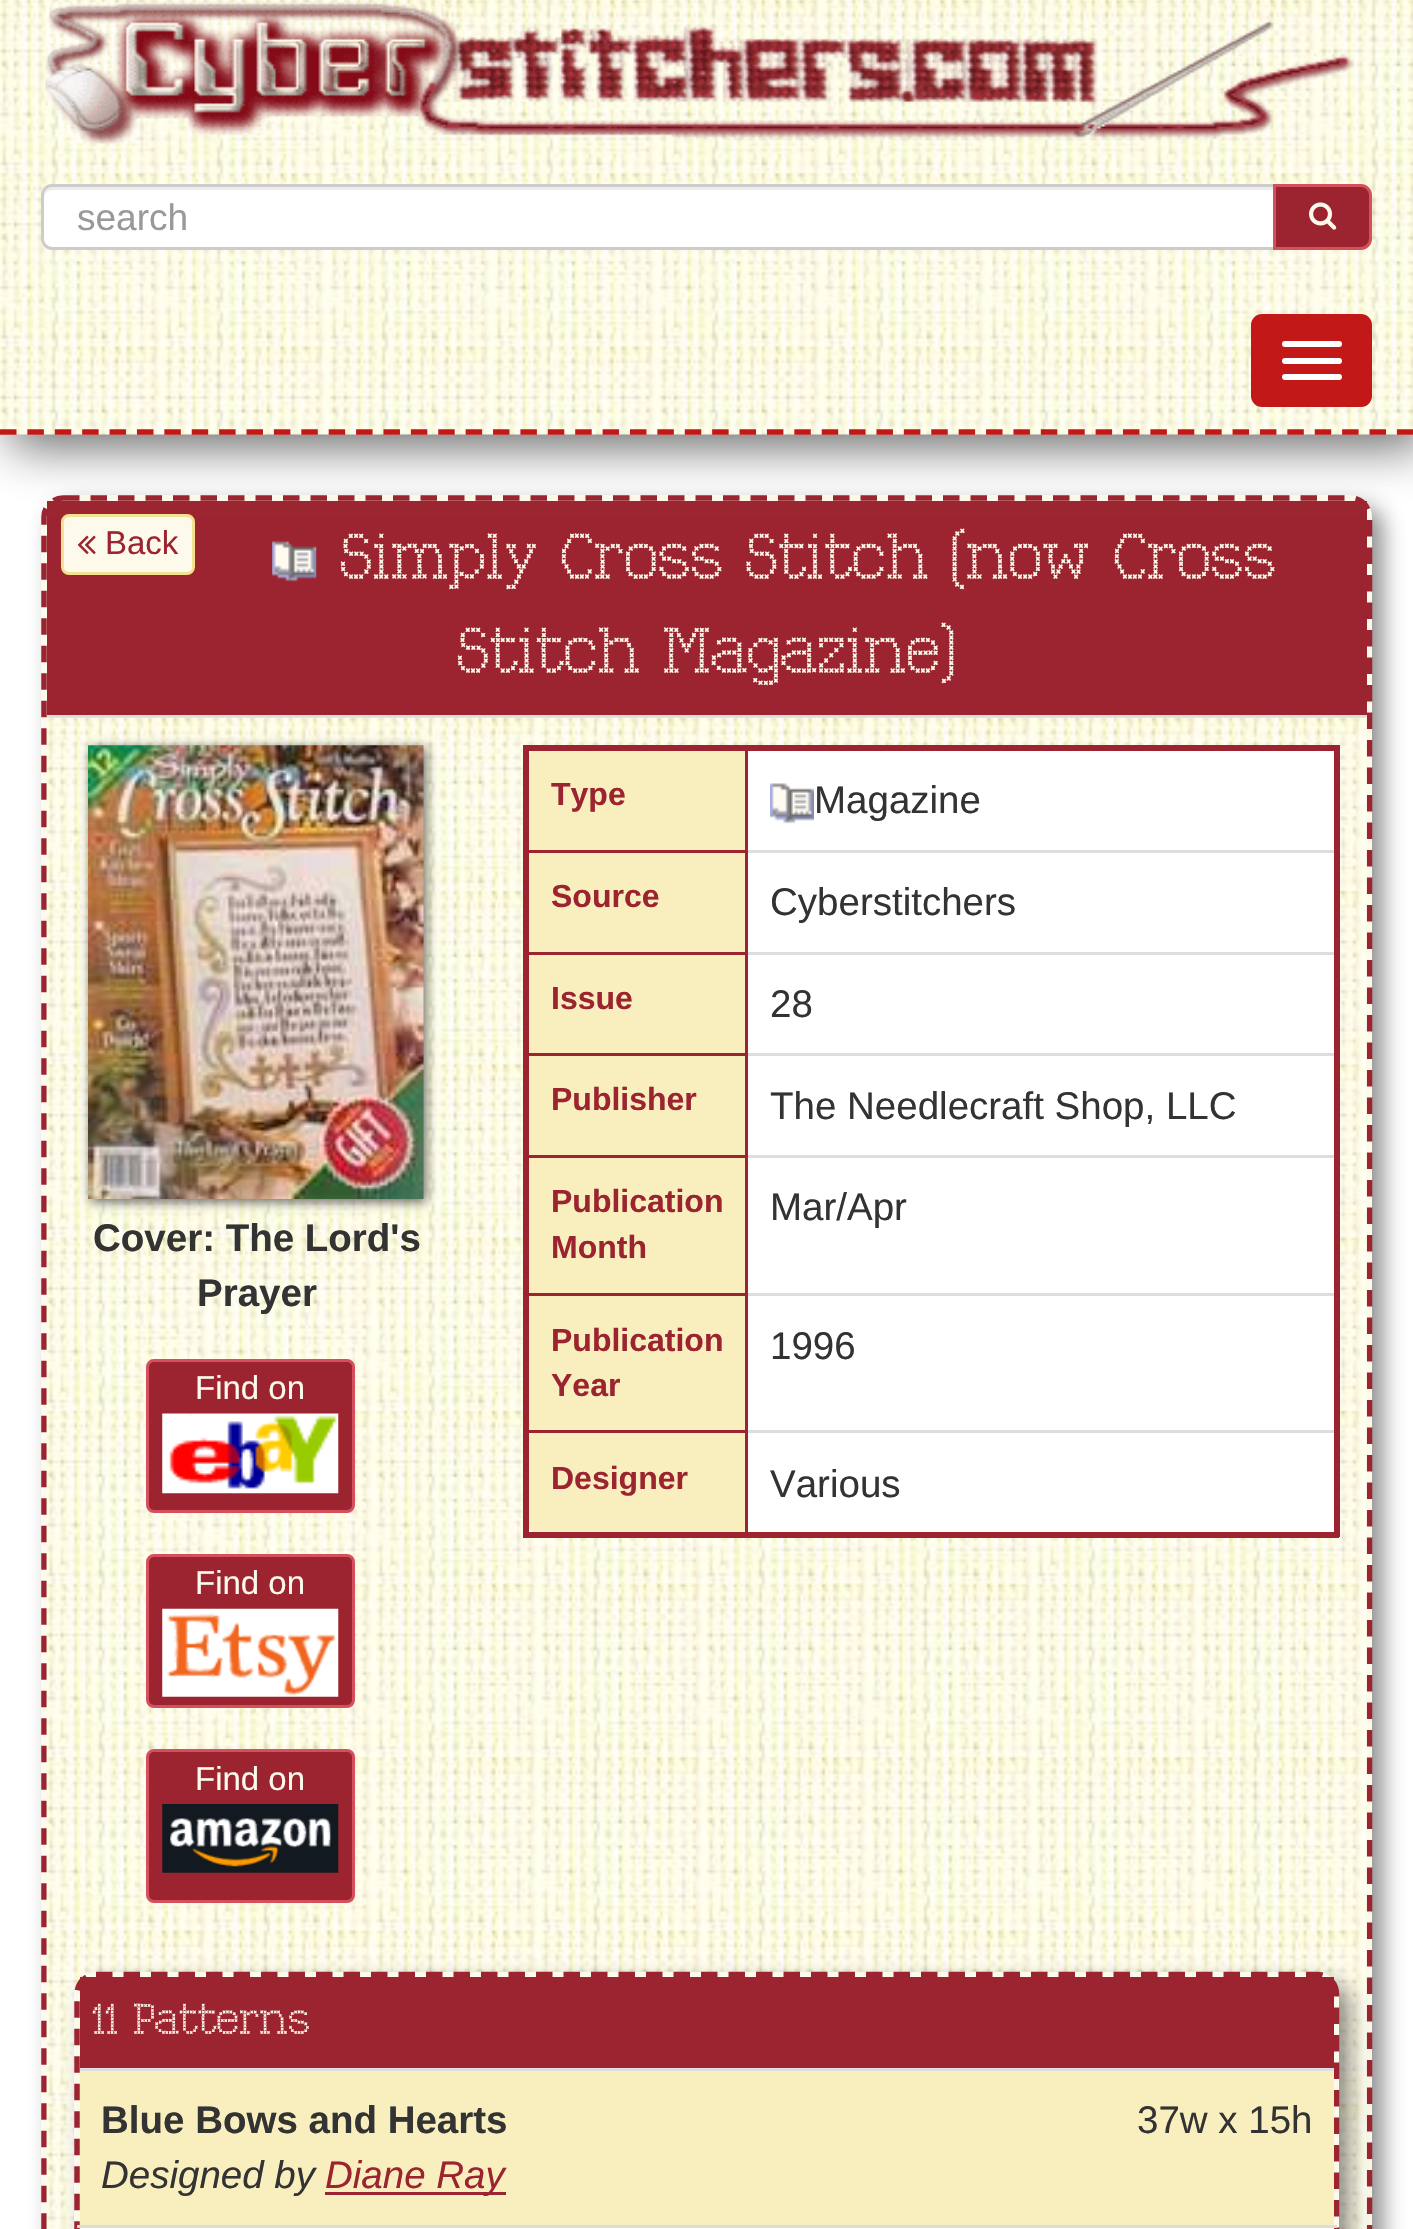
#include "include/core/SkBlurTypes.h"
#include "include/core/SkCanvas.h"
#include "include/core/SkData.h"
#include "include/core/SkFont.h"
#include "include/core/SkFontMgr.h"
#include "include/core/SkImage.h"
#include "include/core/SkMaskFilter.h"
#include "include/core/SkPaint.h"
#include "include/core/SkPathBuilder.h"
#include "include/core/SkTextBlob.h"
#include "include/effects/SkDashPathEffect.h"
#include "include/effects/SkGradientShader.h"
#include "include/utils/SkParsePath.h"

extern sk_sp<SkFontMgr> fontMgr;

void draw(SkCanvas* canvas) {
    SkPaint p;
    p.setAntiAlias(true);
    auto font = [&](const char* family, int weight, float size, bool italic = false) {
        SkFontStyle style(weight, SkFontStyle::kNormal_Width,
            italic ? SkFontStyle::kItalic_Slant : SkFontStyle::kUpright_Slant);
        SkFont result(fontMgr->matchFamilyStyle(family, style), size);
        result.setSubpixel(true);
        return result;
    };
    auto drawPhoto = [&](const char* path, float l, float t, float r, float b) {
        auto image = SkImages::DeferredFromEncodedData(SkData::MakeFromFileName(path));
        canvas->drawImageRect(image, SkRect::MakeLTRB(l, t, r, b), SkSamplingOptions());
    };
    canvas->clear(0xFFFFFFFF);
    p.setColor(0x8C333232);
    p.setMaskFilter(SkMaskFilter::MakeBlur(kNormal_SkBlurStyle, 11));
    canvas->drawRoundRect(SkRect::MakeLTRB(52, 506, 1383, 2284), 22, 22, p);
    p.setMaskFilter(nullptr);
    p.setColor(0xFFFDFAEC);
    canvas->drawRoundRect(SkRect::MakeLTRB(41, 495, 1372, 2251), 22, 22, p);
    p.setStyle(SkPaint::kStroke_Style);
    p.setStrokeWidth(5.5f);
    p.setColor(0xFF9B2430);
    p.setPathEffect(SkDashPathEffect::Make({{16.5f, 11}}, 0));
    canvas->drawPath(SkPathBuilder().moveTo(63, 498).lineTo(1350, 498).cubicTo(1361, 498, 1369.5f, 506.5f, 1369.5f, 517).lineTo(1369.5f, 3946).cubicTo(1369.5f, 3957, 1361, 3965.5f, 1350, 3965.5f).lineTo(63, 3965.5f).cubicTo(52.5f, 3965.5f, 44, 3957, 44, 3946).lineTo(44, 517).cubicTo(44, 506.5f, 52.5f, 498, 63, 498).close().detach(), p);
    p.setPathEffect(nullptr);
    p.setStyle(SkPaint::kFill_Style);
    canvas->drawRect(SkRect::MakeLTRB(47, 501, 1367, 715), p);
    p.setColor(0xFFFDFAEC);
    canvas->drawRoundRect(SkRect::MakeLTRB(62.5f, 515.5f, 193.5f, 573.5f), 6.5f, 6.5f, p);
    p.setStyle(SkPaint::kStroke_Style);
    p.setStrokeWidth(3);
    p.setColor(0xFFF3E290);
    canvas->drawRoundRect(SkRect::MakeLTRB(62.5f, 515.5f, 193.5f, 573.5f), 6.5f, 6.5f, p);
    p.setStyle(SkPaint::kFill_Style);
    p.setColor(0xBF333232);
    p.setMaskFilter(SkMaskFilter::MakeBlur(kNormal_SkBlurStyle, 23.5f));
    canvas->drawRect(SkRect::MakeLTRB(11, 11, 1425, 446), p);
    p.setMaskFilter(nullptr);
    drawPhoto("media/1.png", 0, 0, 1413, 435);
    p.setStyle(SkPaint::kStroke_Style);
    p.setStrokeWidth(5.5f);
    p.setColor(0xFFC21818);
    p.setPathEffect(SkDashPathEffect::Make({{16.5f, 10.89f}}, 0));
    canvas->drawPath(SkPathBuilder().moveTo(0, 432).lineTo(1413.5f, 432).detach(), p);
    p.setPathEffect(nullptr);
    drawPhoto("media/2.png", 45, 0, 1355, 144);
    p.setStyle(SkPaint::kFill_Style);
    p.setColor(0xFFFFFFFF);
    canvas->drawPath(SkPathBuilder().moveTo(52, 184).lineTo(1276, 184).lineTo(1276, 250).lineTo(52, 250).cubicTo(46, 250, 41, 245, 41, 239).lineTo(41, 195).cubicTo(41, 189, 46, 184, 52, 184).close().detach(), p);
    p.setColor(0xFFECECEC);
    canvas->drawPath(SkPathBuilder().moveTo(52, 190).lineTo(1273, 190).lineTo(1273, 187).lineTo(52, 187).cubicTo(46, 187, 44, 193, 44, 198).cubicTo(44, 193, 48, 190, 52, 190).close().detach(), p);
    p.setStyle(SkPaint::kStroke_Style);
    p.setStrokeWidth(3);
    p.setColor(0xFFCCCCCC);
    canvas->drawPath(SkPathBuilder().moveTo(52, 185.5f).lineTo(1274.5f, 185.5f).lineTo(1274.5f, 248.5f).lineTo(52, 248.5f).cubicTo(47, 248.5f, 42.5f, 244, 42.5f, 239).lineTo(42.5f, 195).cubicTo(42.5f, 190, 47, 185.5f, 52, 185.5f).close().detach(), p);
    auto font1 = font("Liberation Sans", 400, 37);
    p.setStyle(SkPaint::kFill_Style);
    p.setColor(0xFF999999);
    canvas->drawString("search", 77, 230, font1, p);
    p.setColor(0xFF9B2430);
    canvas->drawPath(SkPathBuilder().moveTo(1274.5f, 185.5f).lineTo(1361, 185.5f).cubicTo(1366, 185.5f, 1370.5f, 190, 1370.5f, 195).lineTo(1370.5f, 239).cubicTo(1370.5f, 244, 1366, 248.5f, 1361, 248.5f).lineTo(1274.5f, 248.5f).close().detach(), p);
    p.setStyle(SkPaint::kStroke_Style);
    p.setColor(0xFFD64F5D);
    canvas->drawPath(SkPathBuilder().moveTo(1274.5f, 185.5f).lineTo(1361, 185.5f).cubicTo(1366, 185.5f, 1370.5f, 190, 1370.5f, 195).lineTo(1370.5f, 239).cubicTo(1370.5f, 244, 1366, 248.5f, 1361, 248.5f).lineTo(1274.5f, 248.5f).close().detach(), p);
    drawPhoto("media/3.png", 1309, 202, 1337, 230);
    p.setStyle(SkPaint::kFill_Style);
    p.setColor(0xFFC21818);
    canvas->drawRoundRect(SkRect::MakeLTRB(1251, 314, 1372, 407), 11, 11, p);
    p.setColor(0xFFFFFFFF);
    canvas->drawRoundRect(SkRect::MakeLTRB(1282, 341, 1342, 347), 3, 3, p);
    canvas->drawRoundRect(SkRect::MakeLTRB(1282, 358, 1342, 364), 3, 3, p);
    canvas->drawRoundRect(SkRect::MakeLTRB(1282, 374, 1342, 380), 3, 3, p);
    p.setColor(0xFFDDDDDD);
    canvas->drawRect(SkRect::MakeLTRB(47, 715, 1367, 718), p);
    drawPhoto("media/4.png", 77, 535, 96, 554);
    auto font2 = font("Liberation Sans", 400, 33);
    p.setColor(0xFF9B2430);
    canvas->drawString("Back", 105, 554, font2, p);
    drawPhoto("media/5.png", 272, 541, 317, 582);
    auto font3 = font("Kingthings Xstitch", 100, 66);
    p.setColor(0xFFFDFAEC);
    canvas->drawString("Simply Cross Stitch (now Cross", 340, 579, font3, p);
    canvas->drawString("Stitch Magazine)", 457, 673, font3, p);
    drawPhoto("media/6.png", 46, 717, 1367, 2229);
    p.setColor(0xBF333232);
    p.setMaskFilter(SkMaskFilter::MakeBlur(kNormal_SkBlurStyle, 5.5f));
    canvas->drawRect(SkRect::MakeLTRB(91, 748, 426, 1202), p);
    p.setMaskFilter(nullptr);
    drawPhoto("media/7.png", 88, 745, 424, 1199);
    auto font4 = font("Liberation Sans", 700, 38.5f);
    p.setColor(0xFF333333);
    canvas->drawString("Cover: The Lord's", 93, 1251, font4, p);
    canvas->drawString("Prayer", 197, 1306, font4, p);
    p.setColor(0xFF9B2430);
    canvas->drawRoundRect(SkRect::MakeLTRB(147.5f, 1360.5f, 353.5f, 1511.5f), 6.5f, 6.5f, p);
    p.setStyle(SkPaint::kStroke_Style);
    p.setColor(0xFFD64F5D);
    canvas->drawRoundRect(SkRect::MakeLTRB(147.5f, 1360.5f, 353.5f, 1511.5f), 6.5f, 6.5f, p);
    p.setStyle(SkPaint::kFill_Style);
    p.setColor(0xFFFDFAEC);
    canvas->drawString("Find on", 195, 1399, font2, p);
    drawPhoto("media/8.png", 162, 1413, 339, 1494);
    p.setColor(0xFF9B2430);
    canvas->drawRoundRect(SkRect::MakeLTRB(147.5f, 1555.5f, 353.5f, 1706.5f), 6.5f, 6.5f, p);
    p.setStyle(SkPaint::kStroke_Style);
    p.setColor(0xFFD64F5D);
    canvas->drawRoundRect(SkRect::MakeLTRB(147.5f, 1555.5f, 353.5f, 1706.5f), 6.5f, 6.5f, p);
    p.setStyle(SkPaint::kFill_Style);
    p.setColor(0xFFFDFAEC);
    canvas->drawString("Find on", 195, 1594, font2, p);
    drawPhoto("media/9.png", 162, 1608, 339, 1697);
    p.setColor(0xFF9B2430);
    canvas->drawRoundRect(SkRect::MakeLTRB(147.5f, 1750.5f, 353.5f, 1901.5f), 6.5f, 6.5f, p);
    p.setStyle(SkPaint::kStroke_Style);
    p.setColor(0xFFD64F5D);
    canvas->drawRoundRect(SkRect::MakeLTRB(147.5f, 1750.5f, 353.5f, 1901.5f), 6.5f, 6.5f, p);
    p.setStyle(SkPaint::kFill_Style);
    p.setColor(0xFFFDFAEC);
    canvas->drawString("Find on", 195, 1790, font2, p);
    drawPhoto("media/10.png", 162, 1804, 339, 1873);
    p.setColor(0xFFFFFFFF);
    canvas->drawRect(SkRect::MakeLTRB(529, 751, 1334, 1532), p);
    p.setColor(0xFFF8EEBE);
    canvas->drawPath(SkPathBuilder().moveTo(542, 748).lineTo(748, 748).lineTo(748, 850).lineTo(525, 850).lineTo(525, 765).cubicTo(525, 755.5f, 532.5f, 748, 542, 748).close().detach(), p);
    {
        const struct { float l, t, r, b; SkColor color; } items[] = {
            {745, 850, 1339, 853, 0xFFDDDDDD},
            {745, 952, 1339, 955, 0xFFDDDDDD},
            {745, 1053, 1339, 1056, 0xFFDDDDDD},
            {745, 1155, 1339, 1158, 0xFFDDDDDD},
            {745, 1293, 1339, 1296, 0xFFDDDDDD},
        };
        for (auto [l, t, r, b, color] : items) {
            p.setColor(color);
            canvas->drawRect(SkRect::MakeLTRB(l, t, r, b), p);
        }
    }
    p.setColor(0xFFF8EEBE);
    canvas->drawPath(SkPathBuilder().moveTo(525, 1433).lineTo(748, 1433).lineTo(748, 1535).lineTo(542, 1535).cubicTo(532.5f, 1535, 525, 1527.5f, 525, 1518).close().detach(), p);
    {
        const struct { float l, t, r, b; SkColor color; } items[] = {
            {745, 1430, 1339, 1433, 0xFFDDDDDD},
            {745, 1430, 748, 1537, 0xFF9B2430},
            {745, 1293, 748, 1433, 0xFF9B2430},
            {745, 1155, 748, 1295, 0xFF9B2430},
            {745, 1053, 748, 1158, 0xFF9B2430},
            {745, 952, 748, 1056, 0xFF9B2430},
            {745, 745, 748, 954, 0xFF9B2430},
            {523, 745, 1339, 751, 0xFF9B2430},
            {1334, 745, 1340, 1537, 0xFF9B2430},
            {523, 1532, 1339, 1538, 0xFF9B2430},
            {525, 850, 748, 853, 0xFF9B2430},
            {525, 952, 748, 955, 0xFF9B2430},
            {525, 1053, 748, 1056, 0xFF9B2430},
            {525, 1155, 748, 1158, 0xFF9B2430},
            {525, 1293, 748, 1296, 0xFF9B2430},
            {525, 1430, 748, 1433, 0xFF9B2430},
            {523, 745, 529, 1537, 0xFF9B2430},
        };
        for (auto [l, t, r, b, color] : items) {
            p.setColor(color);
            canvas->drawRect(SkRect::MakeLTRB(l, t, r, b), p);
        }
    }
    auto font5 = font("Liberation Sans", 700, 32);
    canvas->drawString("Type", 551, 805, font5, p);
    drawPhoto("media/11.png", 770, 783, 814, 824);
    auto font6 = font("Liberation Sans", 400, 38.5f);
    p.setColor(0xFF333333);
    canvas->drawString("Magazine", 814, 813, font6, p);
    p.setColor(0xFFF8EEBE);
    canvas->drawRect(SkRect::MakeLTRB(529, 853, 745, 952), p);
    p.setColor(0xFF9B2430);
    canvas->drawString("Source", 551, 907, font5, p);
    p.setColor(0xFF333333);
    canvas->drawString("Cyberstitchers", 770, 915, font6, p);
    p.setColor(0xFFF8EEBE);
    canvas->drawRect(SkRect::MakeLTRB(529, 955, 745, 1053), p);
    p.setColor(0xFF9B2430);
    canvas->drawString("Issue", 551, 1009, font5, p);
    p.setColor(0xFF333333);
    canvas->drawString("28", 770, 1017, font6, p);
    p.setColor(0xFFF8EEBE);
    canvas->drawRect(SkRect::MakeLTRB(529, 1056, 745, 1155), p);
    p.setColor(0xFF9B2430);
    canvas->drawString("Publisher", 551, 1110, font5, p);
    p.setColor(0xFF333333);
    canvas->drawString("The Needlecraft Shop, LLC", 770, 1119, font6, p);
    p.setColor(0xFFF8EEBE);
    canvas->drawRect(SkRect::MakeLTRB(529, 1158, 745, 1293), p);
    p.setColor(0xFF9B2430);
    canvas->drawString("Publication", 551, 1212, font5, p);
    canvas->drawString("Month", 551, 1258, font5, p);
    p.setColor(0xFF333333);
    canvas->drawString("Mar/Apr", 770, 1220, font6, p);
    p.setColor(0xFFF8EEBE);
    canvas->drawRect(SkRect::MakeLTRB(529, 1296, 745, 1430), p);
    p.setColor(0xFF9B2430);
    canvas->drawString("Publication", 551, 1351, font5, p);
    canvas->drawString("Year", 551, 1396, font5, p);
    p.setColor(0xFF333333);
    canvas->drawString("1996", 770, 1359, font6, p);
    p.setColor(0xFF9B2430);
    canvas->drawString("Designer", 551, 1489, font5, p);
    p.setColor(0xFF333333);
    canvas->drawString("Various", 770, 1497, font6, p);
    p.setColor(0x8C333232);
    p.setMaskFilter(SkMaskFilter::MakeBlur(kNormal_SkBlurStyle, 11));
    canvas->drawRoundRect(SkRect::MakeLTRB(85, 1983, 1350, 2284), 22, 22, p);
    p.setMaskFilter(nullptr);
    p.setColor(0xFFFDFAEC);
    canvas->drawRoundRect(SkRect::MakeLTRB(74, 1972, 1339, 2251), 22, 22, p);
    p.setStyle(SkPaint::kStroke_Style);
    p.setStrokeWidth(5.5f);
    p.setColor(0xFF9B2430);
    p.setPathEffect(SkDashPathEffect::Make({{16.5f, 11}}, 0));
    canvas->drawPath(SkPathBuilder().moveTo(96, 1974.5f).lineTo(1317, 1974.5f).cubicTo(1328, 1974.5f, 1336.5f, 1983, 1336.5f, 1994).lineTo(1336.5f, 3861).cubicTo(1336.5f, 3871.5f, 1328, 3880, 1317, 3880).lineTo(96, 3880).cubicTo(85.5f, 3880, 77, 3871.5f, 77, 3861).lineTo(77, 1994).cubicTo(77, 1983, 85.5f, 1974.5f, 96, 1974.5f).close().detach(), p);
    p.setPathEffect(nullptr);
    p.setStyle(SkPaint::kFill_Style);
    canvas->drawRect(SkRect::MakeLTRB(80, 1977, 1334, 2068), p);
    p.setColor(0xFFDDDDDD);
    canvas->drawRect(SkRect::MakeLTRB(80, 2068, 1334, 2071), p);
    auto font7 = font("Kingthings Xstitch", 100, 44);
    p.setColor(0xFFFDFAEC);
    canvas->drawString("11 Patterns", 92, 2034, font7, p);
    p.setColor(0xFFFFFFFF);
    canvas->drawRect(SkRect::MakeLTRB(80, 2228, 1334, 2229), p);
    p.setColor(0xFFF8EEBE);
    canvas->drawRect(SkRect::MakeLTRB(80, 2071, 1334, 2225), p);
    p.setColor(0xFF333333);
    canvas->drawString("Blue Bows and Hearts", 101, 2133, font4, p);
    auto font8 = font("Liberation Sans", 400, 38.5f, true);
    canvas->drawString("Designed by", 101, 2188, font8, p);
    p.setColor(0xFF9B2430);
    canvas->drawRect(SkRect::MakeLTRB(325, 2192, 506, 2195), p);
    canvas->drawString("Diane Ray", 325, 2188, font8, p);
    p.setColor(0xFF333333);
    canvas->drawString("37w x 15h", 1137, 2133, font6, p);
    p.setColor(0xFFDDDDDD);
    canvas->drawRect(SkRect::MakeLTRB(77, 2225, 1337, 2228), p);
}
